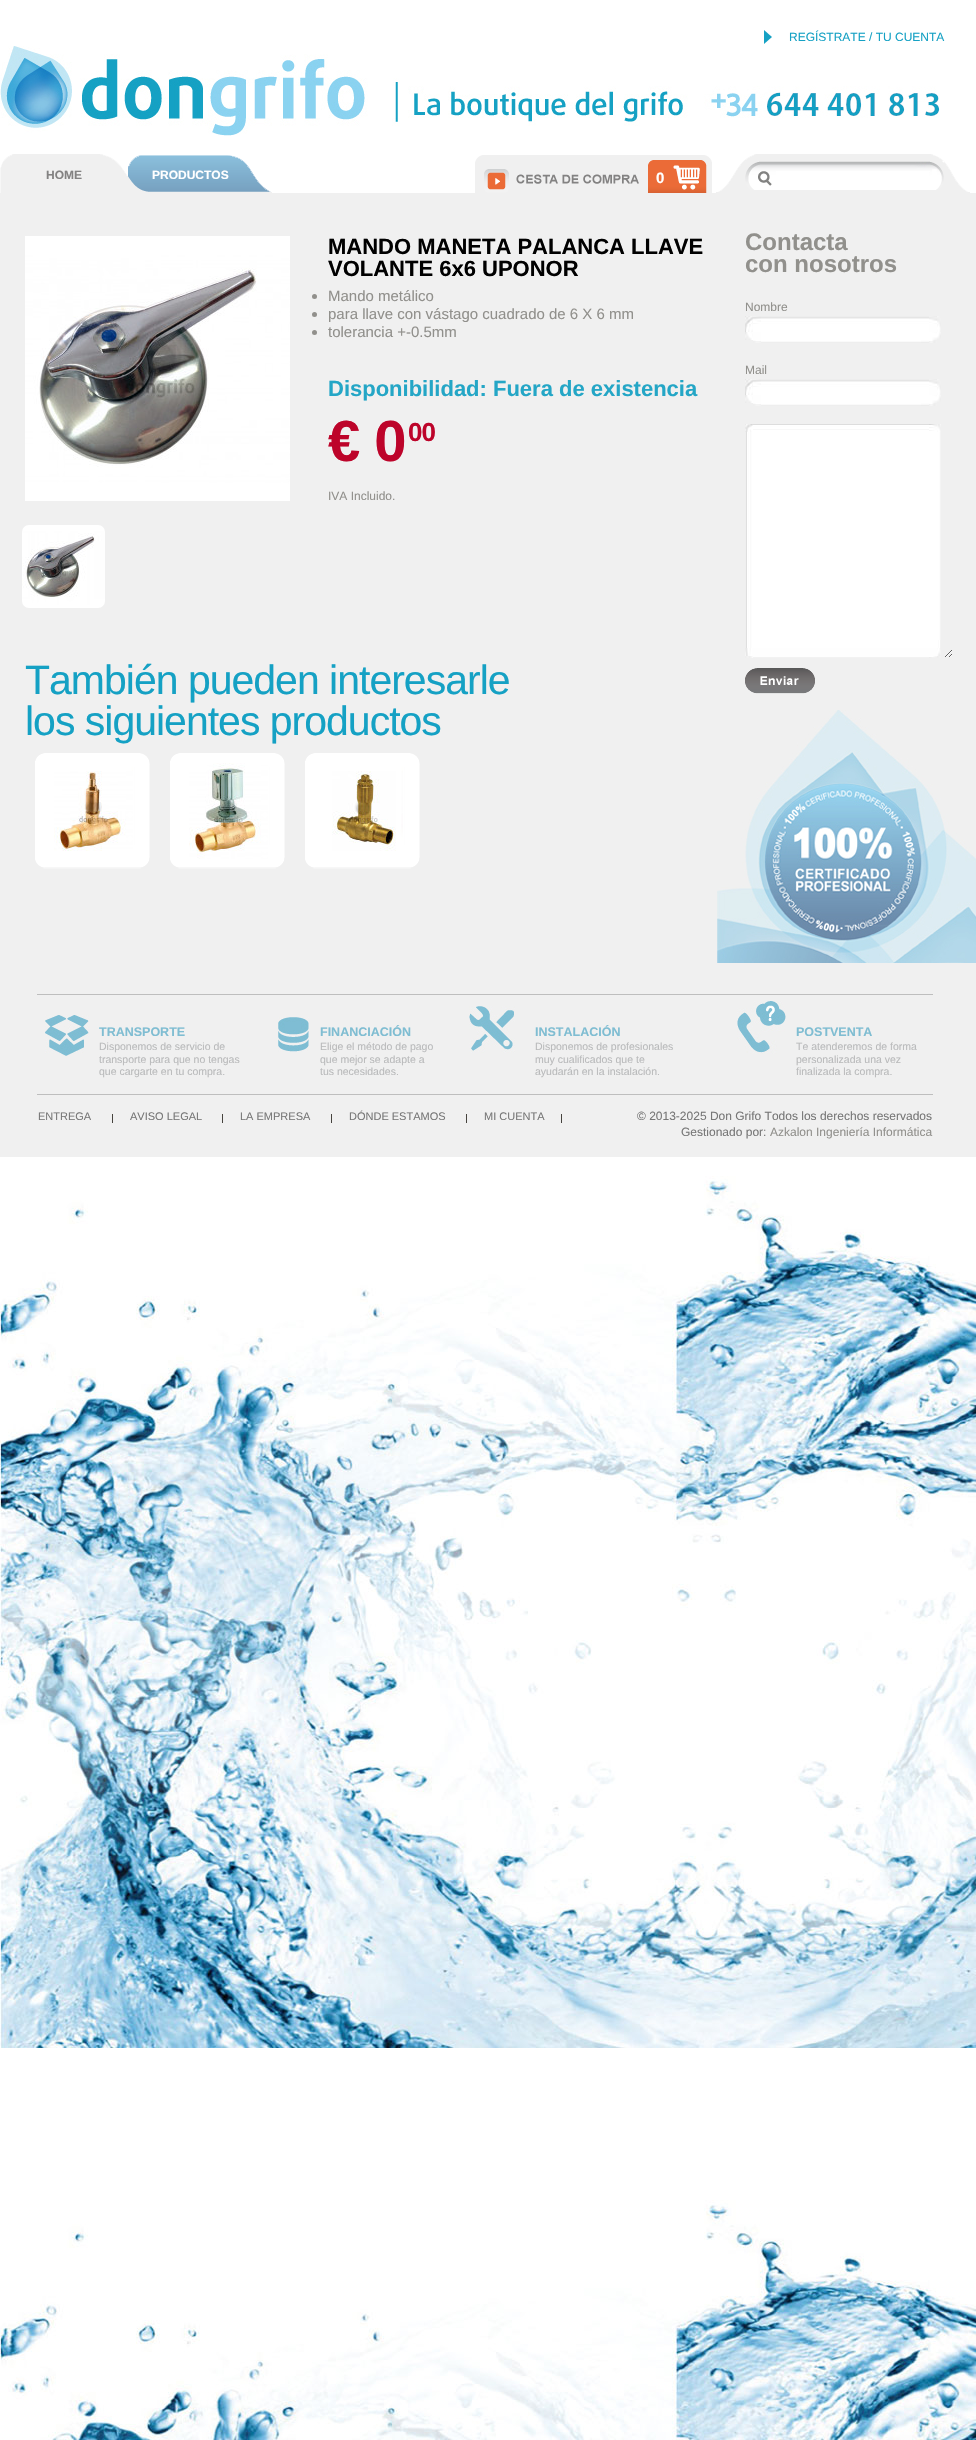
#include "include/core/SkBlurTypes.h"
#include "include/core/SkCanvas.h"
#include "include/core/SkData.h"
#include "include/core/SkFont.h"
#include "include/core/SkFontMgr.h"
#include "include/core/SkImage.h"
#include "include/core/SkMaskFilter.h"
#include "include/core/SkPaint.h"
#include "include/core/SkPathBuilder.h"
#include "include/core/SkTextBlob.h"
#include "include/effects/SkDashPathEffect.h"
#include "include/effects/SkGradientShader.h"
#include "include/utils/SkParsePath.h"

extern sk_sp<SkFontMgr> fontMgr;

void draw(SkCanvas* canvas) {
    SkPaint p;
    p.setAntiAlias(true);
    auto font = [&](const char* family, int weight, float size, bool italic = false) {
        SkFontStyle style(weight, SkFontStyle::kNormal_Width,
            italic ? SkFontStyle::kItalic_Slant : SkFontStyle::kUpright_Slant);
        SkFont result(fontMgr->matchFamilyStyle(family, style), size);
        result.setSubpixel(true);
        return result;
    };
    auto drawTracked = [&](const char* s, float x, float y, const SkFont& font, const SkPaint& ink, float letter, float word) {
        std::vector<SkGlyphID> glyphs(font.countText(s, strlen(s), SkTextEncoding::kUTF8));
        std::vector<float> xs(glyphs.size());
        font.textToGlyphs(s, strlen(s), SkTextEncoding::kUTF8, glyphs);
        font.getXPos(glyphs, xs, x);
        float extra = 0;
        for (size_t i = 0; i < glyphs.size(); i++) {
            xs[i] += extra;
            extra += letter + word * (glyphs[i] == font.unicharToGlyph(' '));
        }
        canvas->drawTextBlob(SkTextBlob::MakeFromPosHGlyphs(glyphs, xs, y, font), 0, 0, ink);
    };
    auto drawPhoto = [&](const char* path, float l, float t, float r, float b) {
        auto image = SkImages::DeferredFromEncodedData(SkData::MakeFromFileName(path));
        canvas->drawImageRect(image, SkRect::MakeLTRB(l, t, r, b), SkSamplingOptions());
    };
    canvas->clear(0xFFFFFFFF);
    drawPhoto("media/1.png", 0, 1157, 976, 2440);
    p.setColor(0xFFF0F0F0);
    canvas->drawRect(SkRect::MakeLTRB(0, 193, 976, 1157), p);
    p.setColor(0xFF15A1C4);
    canvas->drawPath(SkPathBuilder().moveTo(764, 44).lineTo(764, 30).lineTo(772, 37).close().detach(), p);
    auto font1 = font("Liberation Sans", 400, 12);
    canvas->drawString("REGÍSTRATE / TU CUENTA", 789, 41, font1, p);
    drawPhoto("media/2.png", 0, 46, 940, 136);
    drawPhoto("media/3.png", 0, 154, 128, 193);
    auto font2 = font("Liberation Sans", 700, 12);
    p.setColor(0xFF838282);
    canvas->drawString("HOME", 46, 179, font2, p);
    drawPhoto("media/4.png", 128, 155, 272, 193);
    p.setColor(0xFFFFFFFF);
    canvas->drawString("PRODUCTOS", 152, 179, font2, p);
    drawPhoto("media/5.png", 475, 155, 712, 193);
    auto font3 = font("Liberation Sans", 700, 15);
    canvas->drawString("0", 656, 183, font3, p);
    drawPhoto("media/6.png", 716, 154, 970, 193);
    drawPhoto("media/7.png", 745, 161, 944, 190);
    drawPhoto("media/8.png", 25, 236, 290, 501);
    drawPhoto("media/9.png", 22, 525, 105, 608);
    auto font4 = font("Liberation Sans", 700, 22);
    p.setColor(0xFF000000);
    canvas->drawString("MANDO MANETA PALANCA LLAVE", 328, 254, font4, p);
    canvas->drawString("VOLANTE 6x6 UPONOR", 328, 276, font4, p);
    p.setColor(0xFF91908C);
    canvas->drawCircle(314.5f, 296.5f, 2.5f, p);
    auto font5 = font("Liberation Sans", 400, 15);
    canvas->drawString("Mando metálico", 328, 301, font5, p);
    canvas->drawCircle(314.5f, 314.5f, 2.5f, p);
    canvas->drawString("para llave con vástago cuadrado de 6 X 6 mm", 328, 319, font5, p);
    canvas->drawCircle(314.5f, 332.5f, 2.5f, p);
    canvas->drawString("tolerancia +-0.5mm", 328, 337, font5, p);
    p.setColor(0xFF24A6C6);
    canvas->drawString("Disponibilidad: Fuera de existencia", 328, 396, font4, p);
    auto font6 = font("Liberation Sans", 700, 58);
    p.setColor(0xFFBD042A);
    drawTracked("€ 0", 328, 461, font6, p, -1, 0);
    auto font7 = font("Liberation Sans", 700, 26);
    drawTracked("00", 408, 441, font7, p, -1, 0);
    p.setColor(0xFF91908C);
    canvas->drawString("IVA Incluido.", 328, 500, font1, p);
    auto font8 = font("Liberation Sans", 400, 41);
    p.setColor(0xFF15A1C4);
    drawTracked("También pueden interesarle", 25, 694, font8, p, -1, 0);
    drawTracked("los siguientes productos", 25, 735, font8, p, -1, 0);
    drawPhoto("media/10.png", 35, 753, 150, 869);
    drawPhoto("media/11.png", 54, 771, 133, 851);
    drawPhoto("media/10.png", 170, 753, 285, 869);
    drawPhoto("media/12.png", 189, 763, 268, 859);
    drawPhoto("media/10.png", 305, 753, 420, 869);
    drawPhoto("media/13.png", 332, 771, 396, 851);
    auto font9 = font("Liberation Sans", 700, 24);
    p.setColor(0xFF91908C);
    canvas->drawString("Contacta", 745, 250, font9, p);
    canvas->drawString("con nosotros", 745, 272, font9, p);
    canvas->drawString("Nombre", 745, 311, font1, p);
    drawPhoto("media/14.png", 745, 316, 941, 343);
    canvas->drawString("Mail", 745, 374, font1, p);
    drawPhoto("media/14.png", 745, 379, 941, 406);
    drawPhoto("media/15.png", 745, 424, 952, 658);
    drawPhoto("media/16.png", 745, 668, 815, 694);
    drawPhoto("media/17.png", 717, 710, 976, 963);
    p.setColor(0xFFBEBEBE);
    canvas->drawRect(SkRect::MakeLTRB(37, 994, 933, 995), p);
    drawPhoto("media/18.png", 45, 1015, 89, 1056);
    auto font10 = font("Liberation Sans", 700, 12.5f);
    p.setColor(0xFF7FBDD2);
    canvas->drawString("TRANSPORTE", 99, 1036, font10, p);
    auto font11 = font("Liberation Sans", 400, 10.5f);
    p.setColor(0xFFB9BABB);
    {
        const struct { const char* s; float x, y; } items[] = {
            {"Disponemos de servicio de", 99, 1050},
            {"transporte para que no tengas", 99, 1063},
            {"que cargarte en tu compra.", 99, 1075},
        };
        for (auto [s, x, y] : items) {
            canvas->drawString(s, x, y, font11, p);
        }
    }
    drawPhoto("media/19.png", 278, 1017, 309, 1052);
    p.setColor(0xFF7FBDD2);
    canvas->drawString("FINANCIACIÓN", 320, 1036, font10, p);
    p.setColor(0xFFB9BABB);
    {
        const struct { const char* s; float x, y; } items[] = {
            {"Elige el método de pago", 320, 1050},
            {"que mejor se adapte a", 320, 1063},
            {"tus necesidades.", 320, 1075},
        };
        for (auto [s, x, y] : items) {
            canvas->drawString(s, x, y, font11, p);
        }
    }
    drawPhoto("media/20.png", 469, 1006, 515, 1053);
    p.setColor(0xFF7FBDD2);
    canvas->drawString("INSTALACIÓN", 535, 1036, font10, p);
    p.setColor(0xFFB9BABB);
    {
        const struct { const char* s; float x, y; } items[] = {
            {"Disponemos de profesionales", 535, 1050},
            {"muy cualificados que te", 535, 1063},
            {"ayudarán en la instalación.", 535, 1075},
        };
        for (auto [s, x, y] : items) {
            canvas->drawString(s, x, y, font11, p);
        }
    }
    drawPhoto("media/21.png", 737, 1001, 786, 1054);
    p.setColor(0xFF7FBDD2);
    canvas->drawString("POSTVENTA", 796, 1036, font10, p);
    p.setColor(0xFFB9BABB);
    {
        const struct { const char* s; float x, y; } items[] = {
            {"Te atenderemos de forma", 796, 1050},
            {"personalizada una vez", 796, 1063},
            {"finalizada la compra.", 796, 1075},
        };
        for (auto [s, x, y] : items) {
            canvas->drawString(s, x, y, font11, p);
        }
    }
    p.setColor(0xFFBEBEBE);
    canvas->drawRect(SkRect::MakeLTRB(37, 1094, 933, 1095), p);
    auto font12 = font("Liberation Sans", 400, 11);
    p.setColor(0xFF777777);
    canvas->drawString("ENTREGA", 38, 1120, font12, p);
    p.setColor(0xFF46433E);
    canvas->drawRect(SkRect::MakeLTRB(112, 1114, 113, 1123), p);
    p.setColor(0xFF777777);
    canvas->drawString("AVISO LEGAL", 130, 1120, font12, p);
    p.setColor(0xFF46433E);
    canvas->drawRect(SkRect::MakeLTRB(222, 1114, 223, 1123), p);
    p.setColor(0xFF777777);
    canvas->drawString("LA EMPRESA", 240, 1120, font12, p);
    p.setColor(0xFF46433E);
    canvas->drawRect(SkRect::MakeLTRB(331, 1114, 332, 1123), p);
    p.setColor(0xFF777777);
    canvas->drawString("DÓNDE ESTAMOS", 349, 1120, font12, p);
    p.setColor(0xFF46433E);
    canvas->drawRect(SkRect::MakeLTRB(466, 1114, 467, 1123), p);
    p.setColor(0xFF777777);
    canvas->drawString("MI CUENTA", 484, 1120, font12, p);
    p.setColor(0xFF46433E);
    canvas->drawRect(SkRect::MakeLTRB(561, 1114, 562, 1123), p);
    p.setColor(0xFF777777);
    canvas->drawString("© 2013-2025 Don Grifo Todos los derechos reservados", 637, 1120, font1, p);
    canvas->drawString("Gestionado por:", 681, 1136, font1, p);
    p.setColor(0xFF91908C);
    canvas->drawString("Azkalon Ingeniería Informática", 770, 1136, font1, p);
}
